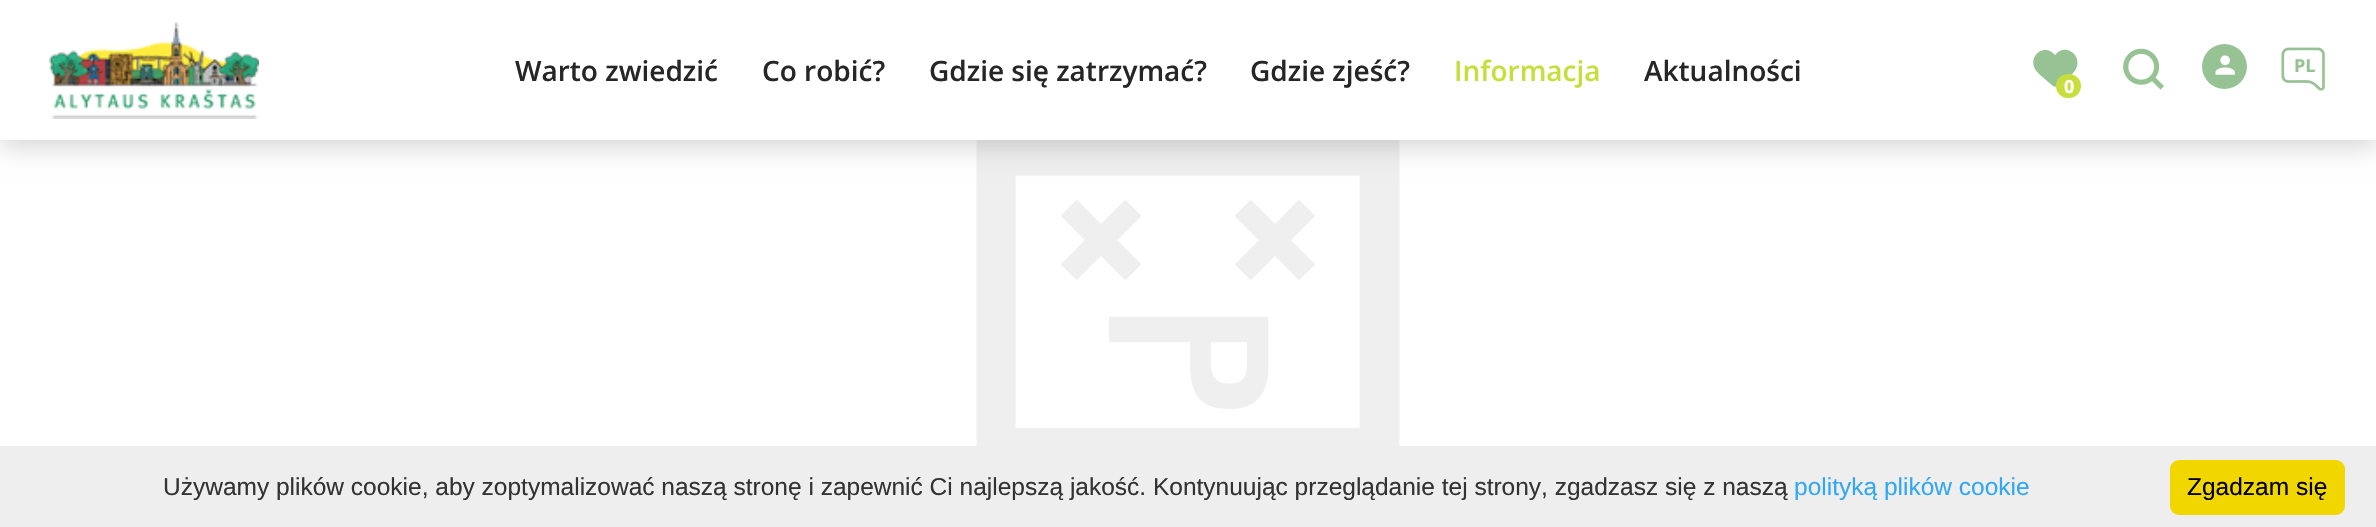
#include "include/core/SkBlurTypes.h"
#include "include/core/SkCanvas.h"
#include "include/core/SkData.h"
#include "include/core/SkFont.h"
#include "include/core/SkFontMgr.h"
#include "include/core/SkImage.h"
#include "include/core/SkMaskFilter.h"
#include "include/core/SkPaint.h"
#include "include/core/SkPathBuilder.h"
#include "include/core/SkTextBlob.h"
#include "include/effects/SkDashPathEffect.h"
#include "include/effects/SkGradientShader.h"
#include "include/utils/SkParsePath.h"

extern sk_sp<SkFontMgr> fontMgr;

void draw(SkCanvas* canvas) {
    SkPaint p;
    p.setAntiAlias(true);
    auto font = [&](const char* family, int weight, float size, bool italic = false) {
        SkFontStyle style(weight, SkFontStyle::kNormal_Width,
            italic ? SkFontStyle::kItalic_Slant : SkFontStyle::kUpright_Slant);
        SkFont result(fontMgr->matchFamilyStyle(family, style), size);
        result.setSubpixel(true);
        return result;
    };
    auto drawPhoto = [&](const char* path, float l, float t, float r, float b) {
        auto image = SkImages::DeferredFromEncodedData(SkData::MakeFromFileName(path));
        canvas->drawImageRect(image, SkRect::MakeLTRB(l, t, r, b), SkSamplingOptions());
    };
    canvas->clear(0xFFFFFFFF);
    drawPhoto("media/5.png", 976, 140, 1400, 446);
    p.setColor(0x29000000);
    p.setMaskFilter(SkMaskFilter::MakeBlur(kNormal_SkBlurStyle, 12));
    canvas->drawRect(SkRect::MakeLTRB(0, 7, 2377, 147), p);
    p.setMaskFilter(nullptr);
    p.setColor(0xFFFFFFFF);
    canvas->drawRect(SkRect::MakeLTRB(0, 0, 2376, 140), p);
    drawPhoto("media/1.png", 48, 22, 259, 119);
    auto font1 = font("Open Sans", 600, 28);
    p.setColor(0xFF262626);
    {
        const struct { const char* s; float x, y; } items[] = {
            {"Warto zwiedzić", 515, 81},
            {"Co robić?", 762, 81},
            {"Gdzie się zatrzymać?", 929, 81},
            {"Gdzie zjeść?", 1250, 81},
        };
        for (auto [s, x, y] : items) {
            canvas->drawString(s, x, y, font1, p);
        }
    }
    p.setColor(0xFFC7DE3D);
    canvas->drawString("Informacja", 1454, 81, font1, p);
    p.setColor(0xFF262626);
    canvas->drawString("Aktualności", 1644, 81, font1, p);
    drawPhoto("media/2.png", 2123, 48, 2164, 90);
    p.setColor(0xFF97C394);
    canvas->drawCircle(2224.5f, 66.5f, 22.5f, p);
    drawPhoto("media/3.png", 2215, 55, 2235, 75);
    auto font2 = font("Open Sans", 700, 18);
    canvas->drawString("PL", 2294, 72, font2, p);
    drawPhoto("media/4.png", 2281, 47, 2325, 91);
    canvas->drawPath(SkPathBuilder().moveTo(2053, 86).lineTo(2047, 81).cubicTo(2043, 77, 2037, 73, 2035, 69).cubicTo(2028, 55, 2045, 43, 2055, 55).cubicTo(2065, 42, 2083, 55, 2076, 69).cubicTo(2072, 76, 2063, 81, 2058, 87).lineTo(2058, 86).cubicTo(2056, 87, 2054, 87, 2053, 86).close().detach(), p);
    p.setColor(0xFFC7DE3D);
    canvas->drawRoundRect(SkRect::MakeLTRB(2056, 74, 2081, 98), 12, 12, p);
    p.setColor(0xFFFFFFFF);
    canvas->drawString("0", 2064, 93, font2, p);
    p.setColor(0xFFEEEEEE);
    canvas->drawRect(SkRect::MakeLTRB(0, 446, 2376, 527), p);
    auto font3 = font("Liberation Sans", 400, 24.5f);
    p.setColor(0xFF333333);
    canvas->drawString("Używamy plików cookie, aby zoptymalizować naszą stronę i zapewnić Ci najlepszą jakość. Kontynuując przeglądanie tej strony, zgadzasz się z naszą", 163, 495, font3, p);
    p.setColor(0xFF31A8F0);
    canvas->drawString("polityką plików cookie", 1794, 495, font3, p);
    p.setColor(0xFFF1D600);
    canvas->drawRoundRect(SkRect::MakeLTRB(2170, 460, 2345, 515), 9, 9, p);
    p.setColor(0xFF000000);
    canvas->drawString("Zgadzam się", 2187, 495, font3, p);
}
